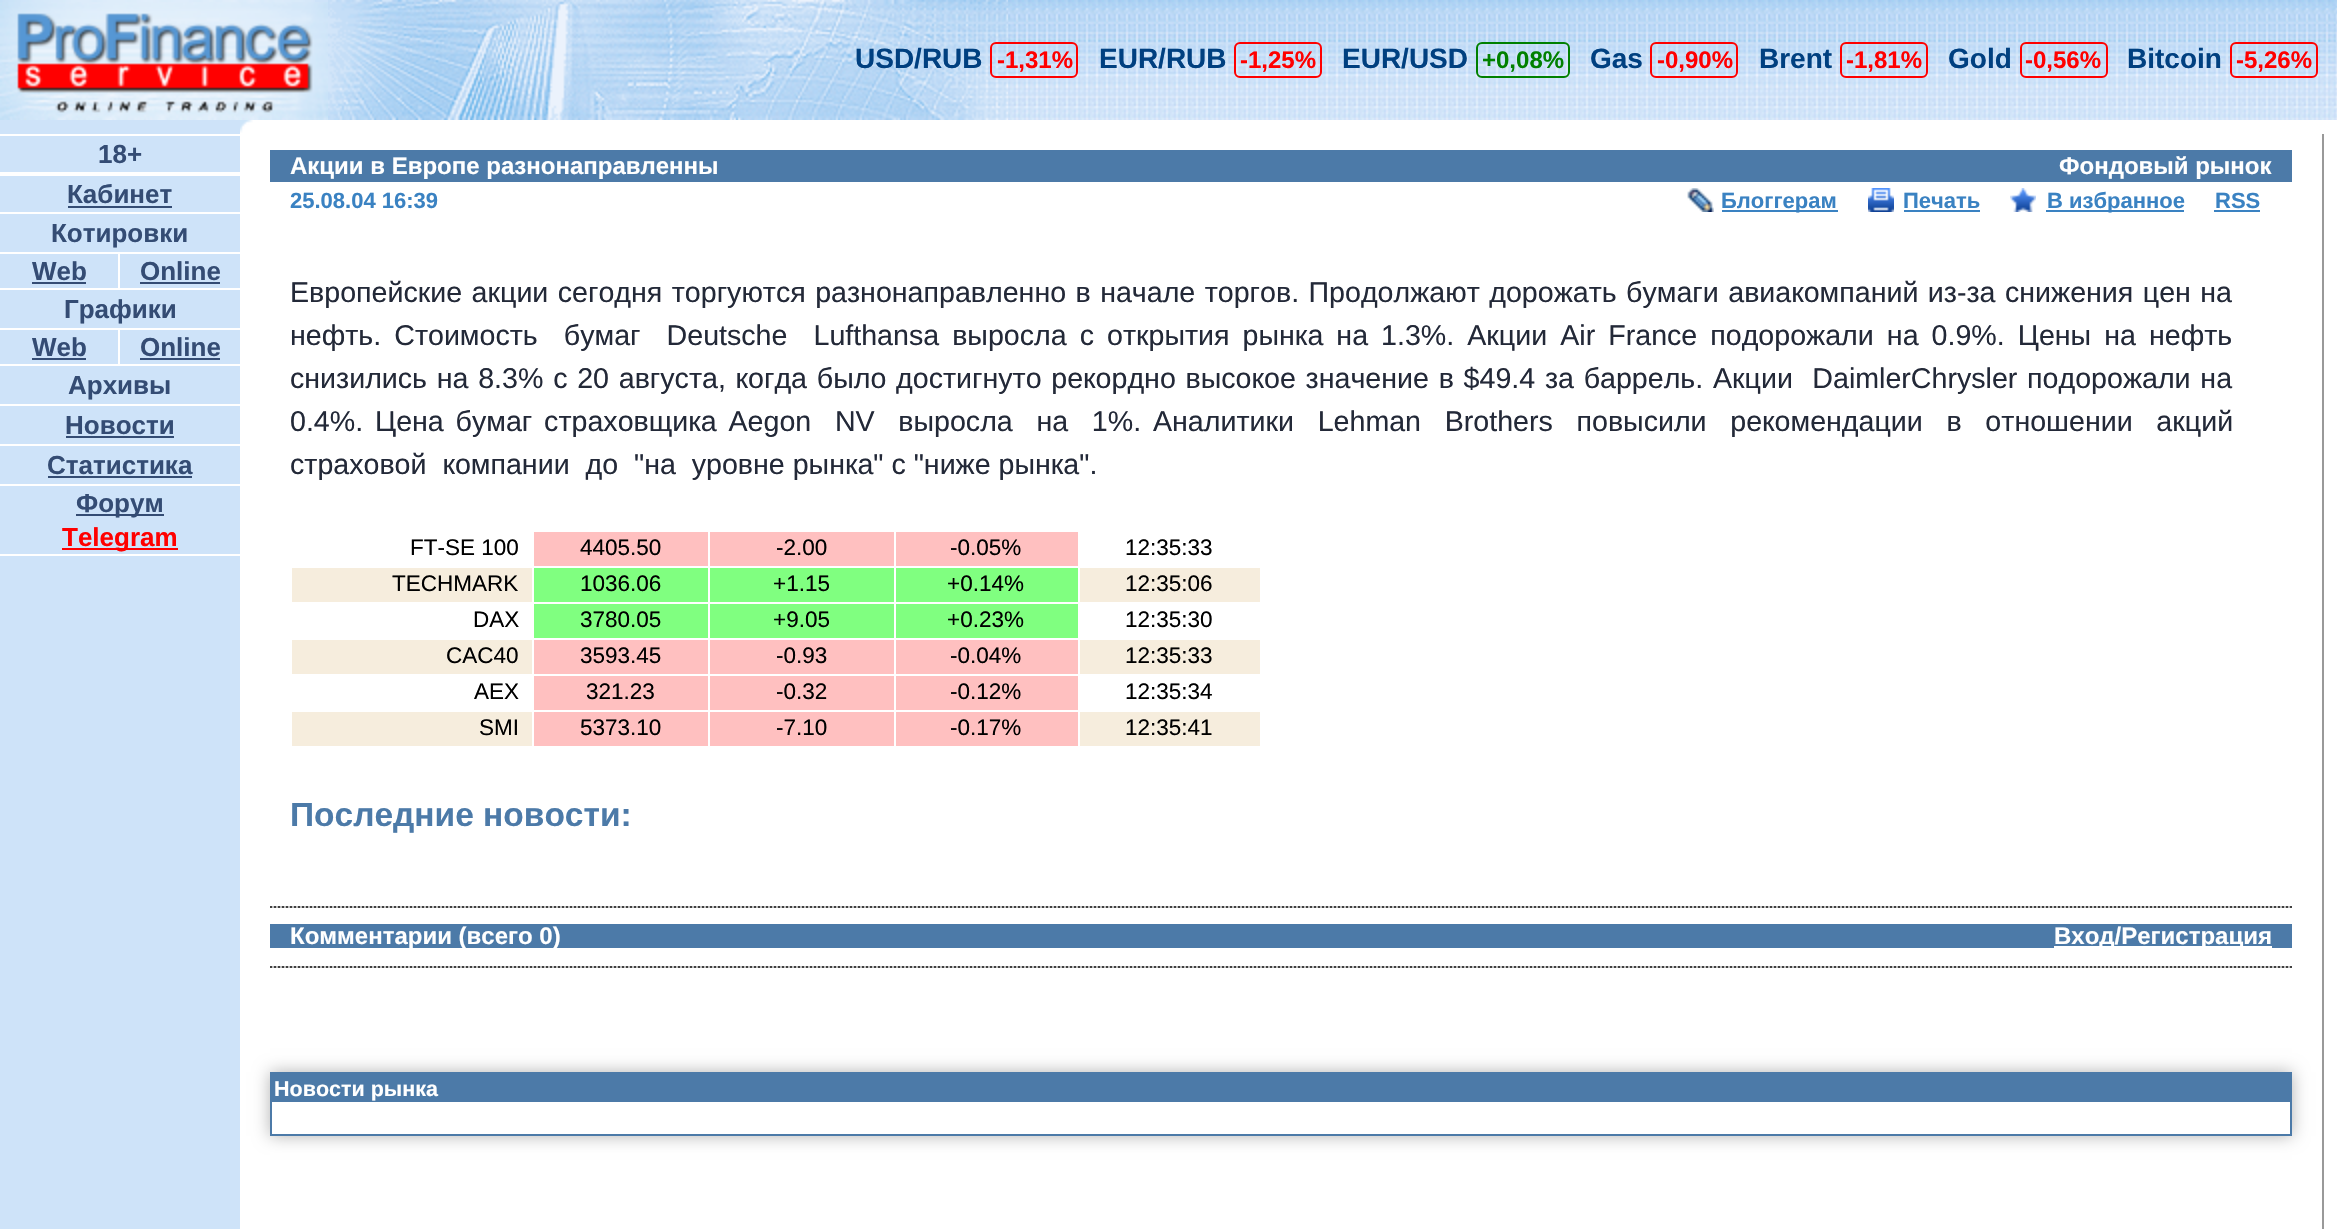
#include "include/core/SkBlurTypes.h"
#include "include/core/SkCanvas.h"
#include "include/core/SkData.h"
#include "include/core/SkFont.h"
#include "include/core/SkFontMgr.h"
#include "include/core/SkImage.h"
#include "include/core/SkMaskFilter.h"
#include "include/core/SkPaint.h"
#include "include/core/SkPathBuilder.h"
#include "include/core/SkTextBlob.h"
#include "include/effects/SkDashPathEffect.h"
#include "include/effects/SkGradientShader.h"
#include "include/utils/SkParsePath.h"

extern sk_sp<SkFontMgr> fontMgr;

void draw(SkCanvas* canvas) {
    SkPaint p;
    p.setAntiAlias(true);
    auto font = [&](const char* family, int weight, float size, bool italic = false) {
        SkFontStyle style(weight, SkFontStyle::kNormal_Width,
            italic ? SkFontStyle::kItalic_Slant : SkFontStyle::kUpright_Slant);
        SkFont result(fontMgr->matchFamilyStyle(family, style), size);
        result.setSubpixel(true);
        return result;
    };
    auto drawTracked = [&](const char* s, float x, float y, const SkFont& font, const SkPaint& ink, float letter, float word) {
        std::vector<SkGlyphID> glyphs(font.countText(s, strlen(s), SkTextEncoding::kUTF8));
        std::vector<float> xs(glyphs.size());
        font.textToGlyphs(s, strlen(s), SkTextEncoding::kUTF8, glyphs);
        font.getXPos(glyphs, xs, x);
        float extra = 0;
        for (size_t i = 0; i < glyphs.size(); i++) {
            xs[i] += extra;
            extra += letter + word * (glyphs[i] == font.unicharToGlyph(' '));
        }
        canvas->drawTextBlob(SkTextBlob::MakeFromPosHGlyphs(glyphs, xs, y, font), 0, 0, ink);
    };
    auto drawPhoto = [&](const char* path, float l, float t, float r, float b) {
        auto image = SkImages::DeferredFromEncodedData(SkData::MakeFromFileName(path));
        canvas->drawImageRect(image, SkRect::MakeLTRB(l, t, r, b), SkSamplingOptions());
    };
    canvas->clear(0xFFFFFFFF);
    p.setColor(0xFFCEE3F9);
    canvas->drawRect(SkRect::MakeLTRB(315, 0, 328, 2), p);
    drawPhoto("media/1.png", 0, 0, 315, 2);
    drawPhoto("media/2.png", 0, 2, 328, 120);
    drawPhoto("media/3.png", 328, 0, 1008, 120);
    drawPhoto("media/4.png", 1008, 0, 2337, 120);
    auto font1 = font("Liberation Sans", 700, 28);
    p.setColor(0xFF004080);
    canvas->drawString("USD/RUB", 855, 68, font1, p);
    p.setStyle(SkPaint::kStroke_Style);
    p.setStrokeWidth(2);
    p.setColor(0xFFFF0000);
    canvas->drawRoundRect(SkRect::MakeLTRB(991, 43, 1077, 77), 5, 5, p);
    auto font2 = font("Liberation Sans", 700, 24);
    p.setStyle(SkPaint::kFill_Style);
    canvas->drawString("-1,31%", 997, 68, font2, p);
    p.setColor(0xFF004080);
    canvas->drawString("EUR/RUB", 1099, 68, font1, p);
    p.setStyle(SkPaint::kStroke_Style);
    p.setColor(0xFFFF0000);
    canvas->drawRoundRect(SkRect::MakeLTRB(1235, 43, 1321, 77), 5, 5, p);
    p.setStyle(SkPaint::kFill_Style);
    canvas->drawString("-1,25%", 1240, 68, font2, p);
    p.setColor(0xFF004080);
    canvas->drawString("EUR/USD", 1342, 68, font1, p);
    p.setStyle(SkPaint::kStroke_Style);
    p.setColor(0xFF008000);
    canvas->drawRoundRect(SkRect::MakeLTRB(1477, 43, 1569, 77), 5, 5, p);
    p.setStyle(SkPaint::kFill_Style);
    canvas->drawString("+0,08%", 1482, 68, font2, p);
    p.setColor(0xFF004080);
    canvas->drawString("Gas", 1590, 68, font1, p);
    p.setStyle(SkPaint::kStroke_Style);
    p.setColor(0xFFFF0000);
    canvas->drawRoundRect(SkRect::MakeLTRB(1651, 43, 1737, 77), 5, 5, p);
    p.setStyle(SkPaint::kFill_Style);
    canvas->drawString("-0,90%", 1657, 68, font2, p);
    p.setColor(0xFF004080);
    canvas->drawString("Brent", 1759, 68, font1, p);
    p.setStyle(SkPaint::kStroke_Style);
    p.setColor(0xFFFF0000);
    canvas->drawRoundRect(SkRect::MakeLTRB(1841, 43, 1927, 77), 5, 5, p);
    p.setStyle(SkPaint::kFill_Style);
    canvas->drawString("-1,81%", 1846, 68, font2, p);
    p.setColor(0xFF004080);
    canvas->drawString("Gold", 1948, 68, font1, p);
    p.setStyle(SkPaint::kStroke_Style);
    p.setColor(0xFFFF0000);
    canvas->drawRoundRect(SkRect::MakeLTRB(2021, 43, 2107, 77), 5, 5, p);
    p.setStyle(SkPaint::kFill_Style);
    canvas->drawString("-0,56%", 2025, 68, font2, p);
    p.setColor(0xFF004080);
    canvas->drawString("Bitcoin", 2127, 68, font1, p);
    p.setStyle(SkPaint::kStroke_Style);
    p.setColor(0xFFFF0000);
    canvas->drawRoundRect(SkRect::MakeLTRB(2231, 43, 2317, 77), 5, 5, p);
    p.setStyle(SkPaint::kFill_Style);
    canvas->drawString("-5,26%", 2236, 68, font2, p);
    p.setColor(0xFFCEE3F9);
    canvas->drawRect(SkRect::MakeLTRB(0, 120, 240, 134), p);
    drawPhoto("media/5.png", 240, 120, 253, 133);
    canvas->drawRect(SkRect::MakeLTRB(0, 136, 240, 1229), p);
    p.setColor(0xFFFFFFFF);
    canvas->drawRect(SkRect::MakeLTRB(0, 172, 240, 176), p);
    auto font3 = font("Liberation Sans", 700, 26);
    p.setColor(0xFF344C74);
    canvas->drawString("18+", 98, 163, font3, p);
    p.setColor(0xFFFFFFFF);
    canvas->drawRect(SkRect::MakeLTRB(0, 212, 240, 214), p);
    p.setColor(0xFF344C74);
    canvas->drawString("Кабинет", 67, 203, font3, p);
    canvas->drawRect(SkRect::MakeLTRB(68, 206, 172, 208), p);
    p.setColor(0xFFFFFFFF);
    canvas->drawRect(SkRect::MakeLTRB(0, 252, 240, 254), p);
    p.setColor(0xFF344C74);
    canvas->drawString("Котировки", 51, 242, font3, p);
    p.setColor(0xFFFFFFFF);
    canvas->drawRect(SkRect::MakeLTRB(118, 254, 120, 290), p);
    canvas->drawRect(SkRect::MakeLTRB(0, 288, 240, 290), p);
    p.setColor(0xFF344C74);
    canvas->drawString("Web", 32, 280, font3, p);
    canvas->drawRect(SkRect::MakeLTRB(32, 282, 86, 284), p);
    canvas->drawString("Online", 140, 280, font3, p);
    canvas->drawRect(SkRect::MakeLTRB(140, 282, 220, 284), p);
    p.setColor(0xFFFFFFFF);
    canvas->drawRect(SkRect::MakeLTRB(0, 328, 240, 330), p);
    p.setColor(0xFF344C74);
    canvas->drawString("Графики", 64, 318, font3, p);
    p.setColor(0xFFFFFFFF);
    canvas->drawRect(SkRect::MakeLTRB(118, 330, 120, 366), p);
    canvas->drawRect(SkRect::MakeLTRB(0, 364, 240, 366), p);
    p.setColor(0xFF344C74);
    canvas->drawString("Web", 32, 356, font3, p);
    canvas->drawRect(SkRect::MakeLTRB(32, 358, 86, 360), p);
    canvas->drawString("Online", 140, 356, font3, p);
    canvas->drawRect(SkRect::MakeLTRB(140, 358, 220, 360), p);
    p.setColor(0xFFFFFFFF);
    canvas->drawRect(SkRect::MakeLTRB(0, 404, 240, 406), p);
    p.setColor(0xFF344C74);
    canvas->drawString("Архивы", 68, 394, font3, p);
    p.setColor(0xFFFFFFFF);
    canvas->drawRect(SkRect::MakeLTRB(0, 444, 240, 446), p);
    p.setColor(0xFF344C74);
    canvas->drawString("Новости", 65, 434, font3, p);
    canvas->drawRect(SkRect::MakeLTRB(66, 436, 174, 438), p);
    p.setColor(0xFFFFFFFF);
    canvas->drawRect(SkRect::MakeLTRB(0, 484, 240, 486), p);
    p.setColor(0xFF344C74);
    canvas->drawString("Статистика", 47, 474, font3, p);
    canvas->drawRect(SkRect::MakeLTRB(48, 476, 192, 478), p);
    canvas->drawRect(SkRect::MakeLTRB(76, 514, 164, 516), p);
    canvas->drawString("Форум", 76, 512, font3, p);
    p.setColor(0xFFFF0000);
    canvas->drawRect(SkRect::MakeLTRB(62, 548, 178, 550), p);
    canvas->drawString("Telegram", 62, 546, font3, p);
    p.setColor(0xFFFFFFFF);
    canvas->drawRect(SkRect::MakeLTRB(0, 554, 240, 556), p);
    p.setColor(0xFF4C7AA8);
    canvas->drawRect(SkRect::MakeLTRB(270, 150, 2292, 182), p);
    p.setColor(0xFFFFFFFF);
    canvas->drawString("Акции в Европе разнонаправленны", 290, 174, font2, p);
    canvas->drawString("Фондовый рынок", 2059, 174, font2, p);
    auto font4 = font("Liberation Sans", 700, 22);
    p.setColor(0xFF3A82C2);
    canvas->drawString("25.08.04 16:39", 290, 208, font4, p);
    drawPhoto("media/6.png", 1687, 188, 1714, 212);
    canvas->drawRect(SkRect::MakeLTRB(1722, 210, 1838, 212), p);
    canvas->drawString("Блоггерам", 1721, 208, font4, p);
    drawPhoto("media/7.png", 1868, 188, 1894, 212);
    canvas->drawString("Печать", 1903, 208, font4, p);
    canvas->drawRect(SkRect::MakeLTRB(1904, 210, 1980, 212), p);
    drawPhoto("media/8.png", 2010, 188, 2036, 212);
    canvas->drawRect(SkRect::MakeLTRB(2046, 210, 2184, 212), p);
    canvas->drawString("В избранное", 2047, 208, font4, p);
    canvas->drawString("RSS", 2215, 208, font4, p);
    canvas->drawRect(SkRect::MakeLTRB(2214, 210, 2260, 212), p);
    auto font5 = font("Liberation Sans", 400, 28.6f);
    p.setColor(0xFF232938);
    drawTracked("Европейские акции сегодня торгуются разнонаправленно в начале торгов. Продолжают дорожать бумаги авиакомпаний из-за снижения цен на", 290, 302, font5, p, 0, 1.5f);
    drawTracked("нефть. Стоимость  бумаг  Deutsche  Lufthansa выросла с открытия рынка на 1.3%. Акции Air France подорожали на 0.9%. Цены на нефть", 290, 345, font5, p, 0, 5.1f);
    drawTracked("снизились на 8.3% с 20 августа, когда было достигнуто рекордно высокое значение в $49.4 за баррель. Акции  DaimlerChrysler подорожали на", 290, 388, font5, p, 0, 1.8f);
    drawTracked("0.4%. Цена бумаг страховщика Aegon  NV  выросла  на  1%. Аналитики  Lehman  Brothers  повысили  рекомендации  в  отношении  акций", 290, 431, font5, p, 0, 3.9f);
    canvas->drawString("страховой  компании  до  \"на  уровне рынка\" с \"ниже рынка\".", 290, 474, font5, p);
    auto font6 = font("Liberation Sans", 400, 22.5f);
    p.setColor(0xFF000000);
    canvas->drawString("FT-SE 100", 410, 555, font6, p);
    p.setColor(0xFFFFC0C0);
    canvas->drawRect(SkRect::MakeLTRB(534, 532, 708, 566), p);
    p.setColor(0xFF000000);
    canvas->drawString("4405.50", 580, 555, font6, p);
    p.setColor(0xFFFFC0C0);
    canvas->drawRect(SkRect::MakeLTRB(710, 532, 894, 566), p);
    p.setColor(0xFF000000);
    canvas->drawString("-2.00", 776, 555, font6, p);
    p.setColor(0xFFFFC0C0);
    canvas->drawRect(SkRect::MakeLTRB(896, 532, 1078, 566), p);
    p.setColor(0xFF000000);
    canvas->drawString("-0.05%", 950, 555, font6, p);
    canvas->drawString("12:35:33", 1125, 555, font6, p);
    p.setColor(0xFFF6EDDD);
    canvas->drawRect(SkRect::MakeLTRB(292, 568, 532, 602), p);
    p.setColor(0xFF000000);
    canvas->drawString("TECHMARK", 392, 591, font6, p);
    p.setColor(0xFF80FF80);
    canvas->drawRect(SkRect::MakeLTRB(534, 568, 708, 602), p);
    p.setColor(0xFF000000);
    canvas->drawString("1036.06", 580, 591, font6, p);
    p.setColor(0xFF80FF80);
    canvas->drawRect(SkRect::MakeLTRB(710, 568, 894, 602), p);
    p.setColor(0xFF000000);
    canvas->drawString("+1.15", 773, 591, font6, p);
    p.setColor(0xFF80FF80);
    canvas->drawRect(SkRect::MakeLTRB(896, 568, 1078, 602), p);
    p.setColor(0xFF000000);
    canvas->drawString("+0.14%", 947, 591, font6, p);
    p.setColor(0xFFF6EDDD);
    canvas->drawRect(SkRect::MakeLTRB(1080, 568, 1260, 602), p);
    p.setColor(0xFF000000);
    canvas->drawString("12:35:06", 1125, 591, font6, p);
    canvas->drawString("DAX", 473, 627, font6, p);
    p.setColor(0xFF80FF80);
    canvas->drawRect(SkRect::MakeLTRB(534, 604, 708, 638), p);
    p.setColor(0xFF000000);
    canvas->drawString("3780.05", 580, 627, font6, p);
    p.setColor(0xFF80FF80);
    canvas->drawRect(SkRect::MakeLTRB(710, 604, 894, 638), p);
    p.setColor(0xFF000000);
    canvas->drawString("+9.05", 773, 627, font6, p);
    p.setColor(0xFF80FF80);
    canvas->drawRect(SkRect::MakeLTRB(896, 604, 1078, 638), p);
    p.setColor(0xFF000000);
    canvas->drawString("+0.23%", 947, 627, font6, p);
    canvas->drawString("12:35:30", 1125, 627, font6, p);
    p.setColor(0xFFF6EDDD);
    canvas->drawRect(SkRect::MakeLTRB(292, 640, 532, 674), p);
    p.setColor(0xFF000000);
    canvas->drawString("CAC40", 446, 663, font6, p);
    p.setColor(0xFFFFC0C0);
    canvas->drawRect(SkRect::MakeLTRB(534, 640, 708, 674), p);
    p.setColor(0xFF000000);
    canvas->drawString("3593.45", 580, 663, font6, p);
    p.setColor(0xFFFFC0C0);
    canvas->drawRect(SkRect::MakeLTRB(710, 640, 894, 674), p);
    p.setColor(0xFF000000);
    canvas->drawString("-0.93", 776, 663, font6, p);
    p.setColor(0xFFFFC0C0);
    canvas->drawRect(SkRect::MakeLTRB(896, 640, 1078, 674), p);
    p.setColor(0xFF000000);
    canvas->drawString("-0.04%", 950, 663, font6, p);
    p.setColor(0xFFF6EDDD);
    canvas->drawRect(SkRect::MakeLTRB(1080, 640, 1260, 674), p);
    p.setColor(0xFF000000);
    canvas->drawString("12:35:33", 1125, 663, font6, p);
    canvas->drawString("AEX", 474, 699, font6, p);
    p.setColor(0xFFFFC0C0);
    canvas->drawRect(SkRect::MakeLTRB(534, 676, 708, 710), p);
    p.setColor(0xFF000000);
    canvas->drawString("321.23", 586, 699, font6, p);
    p.setColor(0xFFFFC0C0);
    canvas->drawRect(SkRect::MakeLTRB(710, 676, 894, 710), p);
    p.setColor(0xFF000000);
    canvas->drawString("-0.32", 776, 699, font6, p);
    p.setColor(0xFFFFC0C0);
    canvas->drawRect(SkRect::MakeLTRB(896, 676, 1078, 710), p);
    p.setColor(0xFF000000);
    canvas->drawString("-0.12%", 950, 699, font6, p);
    canvas->drawString("12:35:34", 1125, 699, font6, p);
    p.setColor(0xFFF6EDDD);
    canvas->drawRect(SkRect::MakeLTRB(292, 712, 532, 746), p);
    p.setColor(0xFF000000);
    canvas->drawString("SMI", 479, 735, font6, p);
    p.setColor(0xFFFFC0C0);
    canvas->drawRect(SkRect::MakeLTRB(534, 712, 708, 746), p);
    p.setColor(0xFF000000);
    canvas->drawString("5373.10", 580, 735, font6, p);
    p.setColor(0xFFFFC0C0);
    canvas->drawRect(SkRect::MakeLTRB(710, 712, 894, 746), p);
    p.setColor(0xFF000000);
    canvas->drawString("-7.10", 776, 735, font6, p);
    p.setColor(0xFFFFC0C0);
    canvas->drawRect(SkRect::MakeLTRB(896, 712, 1078, 746), p);
    p.setColor(0xFF000000);
    canvas->drawString("-0.17%", 950, 735, font6, p);
    p.setColor(0xFFF6EDDD);
    canvas->drawRect(SkRect::MakeLTRB(1080, 712, 1260, 746), p);
    p.setColor(0xFF000000);
    canvas->drawString("12:35:41", 1125, 735, font6, p);
    auto font7 = font("Liberation Sans", 700, 33.5f);
    p.setColor(0xFF4C7AA8);
    canvas->drawString("Последние новости:", 290, 826, font7, p);
    drawPhoto("media/9.png", 270, 906, 2292, 908);
    canvas->drawRect(SkRect::MakeLTRB(270, 924, 2292, 948), p);
    canvas->save();
    canvas->clipRect(SkRect::MakeLTRB(270, 924, 2292, 948));
    p.setColor(0xFFFFFFFF);
    canvas->drawString("Комментарии (всего 0)", 290, 944, font2, p);
    canvas->restore();
    canvas->drawRect(SkRect::MakeLTRB(2054, 946, 2272, 948), p);
    canvas->save();
    canvas->clipRect(SkRect::MakeLTRB(270, 924, 2292, 948));
    canvas->drawString("Вход/Регистрация", 2054, 944, font2, p);
    canvas->restore();
    drawPhoto("media/9.png", 270, 966, 2292, 968);
    canvas->save();
    canvas->clipPath(SkPathBuilder(SkPathFillType::kEvenOdd).moveTo(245, 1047).lineTo(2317, 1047).lineTo(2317, 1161).lineTo(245, 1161).close().moveTo(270, 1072).lineTo(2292, 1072).lineTo(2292, 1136).lineTo(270, 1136).close().detach(), true);
    p.setColor(0x4D000000);
    p.setMaskFilter(SkMaskFilter::MakeBlur(kNormal_SkBlurStyle, 8));
    canvas->drawRect(SkRect::MakeLTRB(270, 1072, 2292, 1136), p);
    p.setMaskFilter(nullptr);
    canvas->restore();
    p.setStyle(SkPaint::kStroke_Style);
    p.setColor(0xFF4C7AA8);
    canvas->drawRect(SkRect::MakeLTRB(271, 1073, 2291, 1135), p);
    p.setStyle(SkPaint::kFill_Style);
    canvas->drawRect(SkRect::MakeLTRB(272, 1074, 2290, 1102), p);
    auto font8 = font("Liberation Sans", 700, 21.5f);
    p.setColor(0xFFFFFFFF);
    canvas->drawString("Новости рынка", 274, 1096, font8, p);
    p.setColor(0xFF999999);
    canvas->drawRect(SkRect::MakeLTRB(2322, 134, 2324, 1229), p);
}
